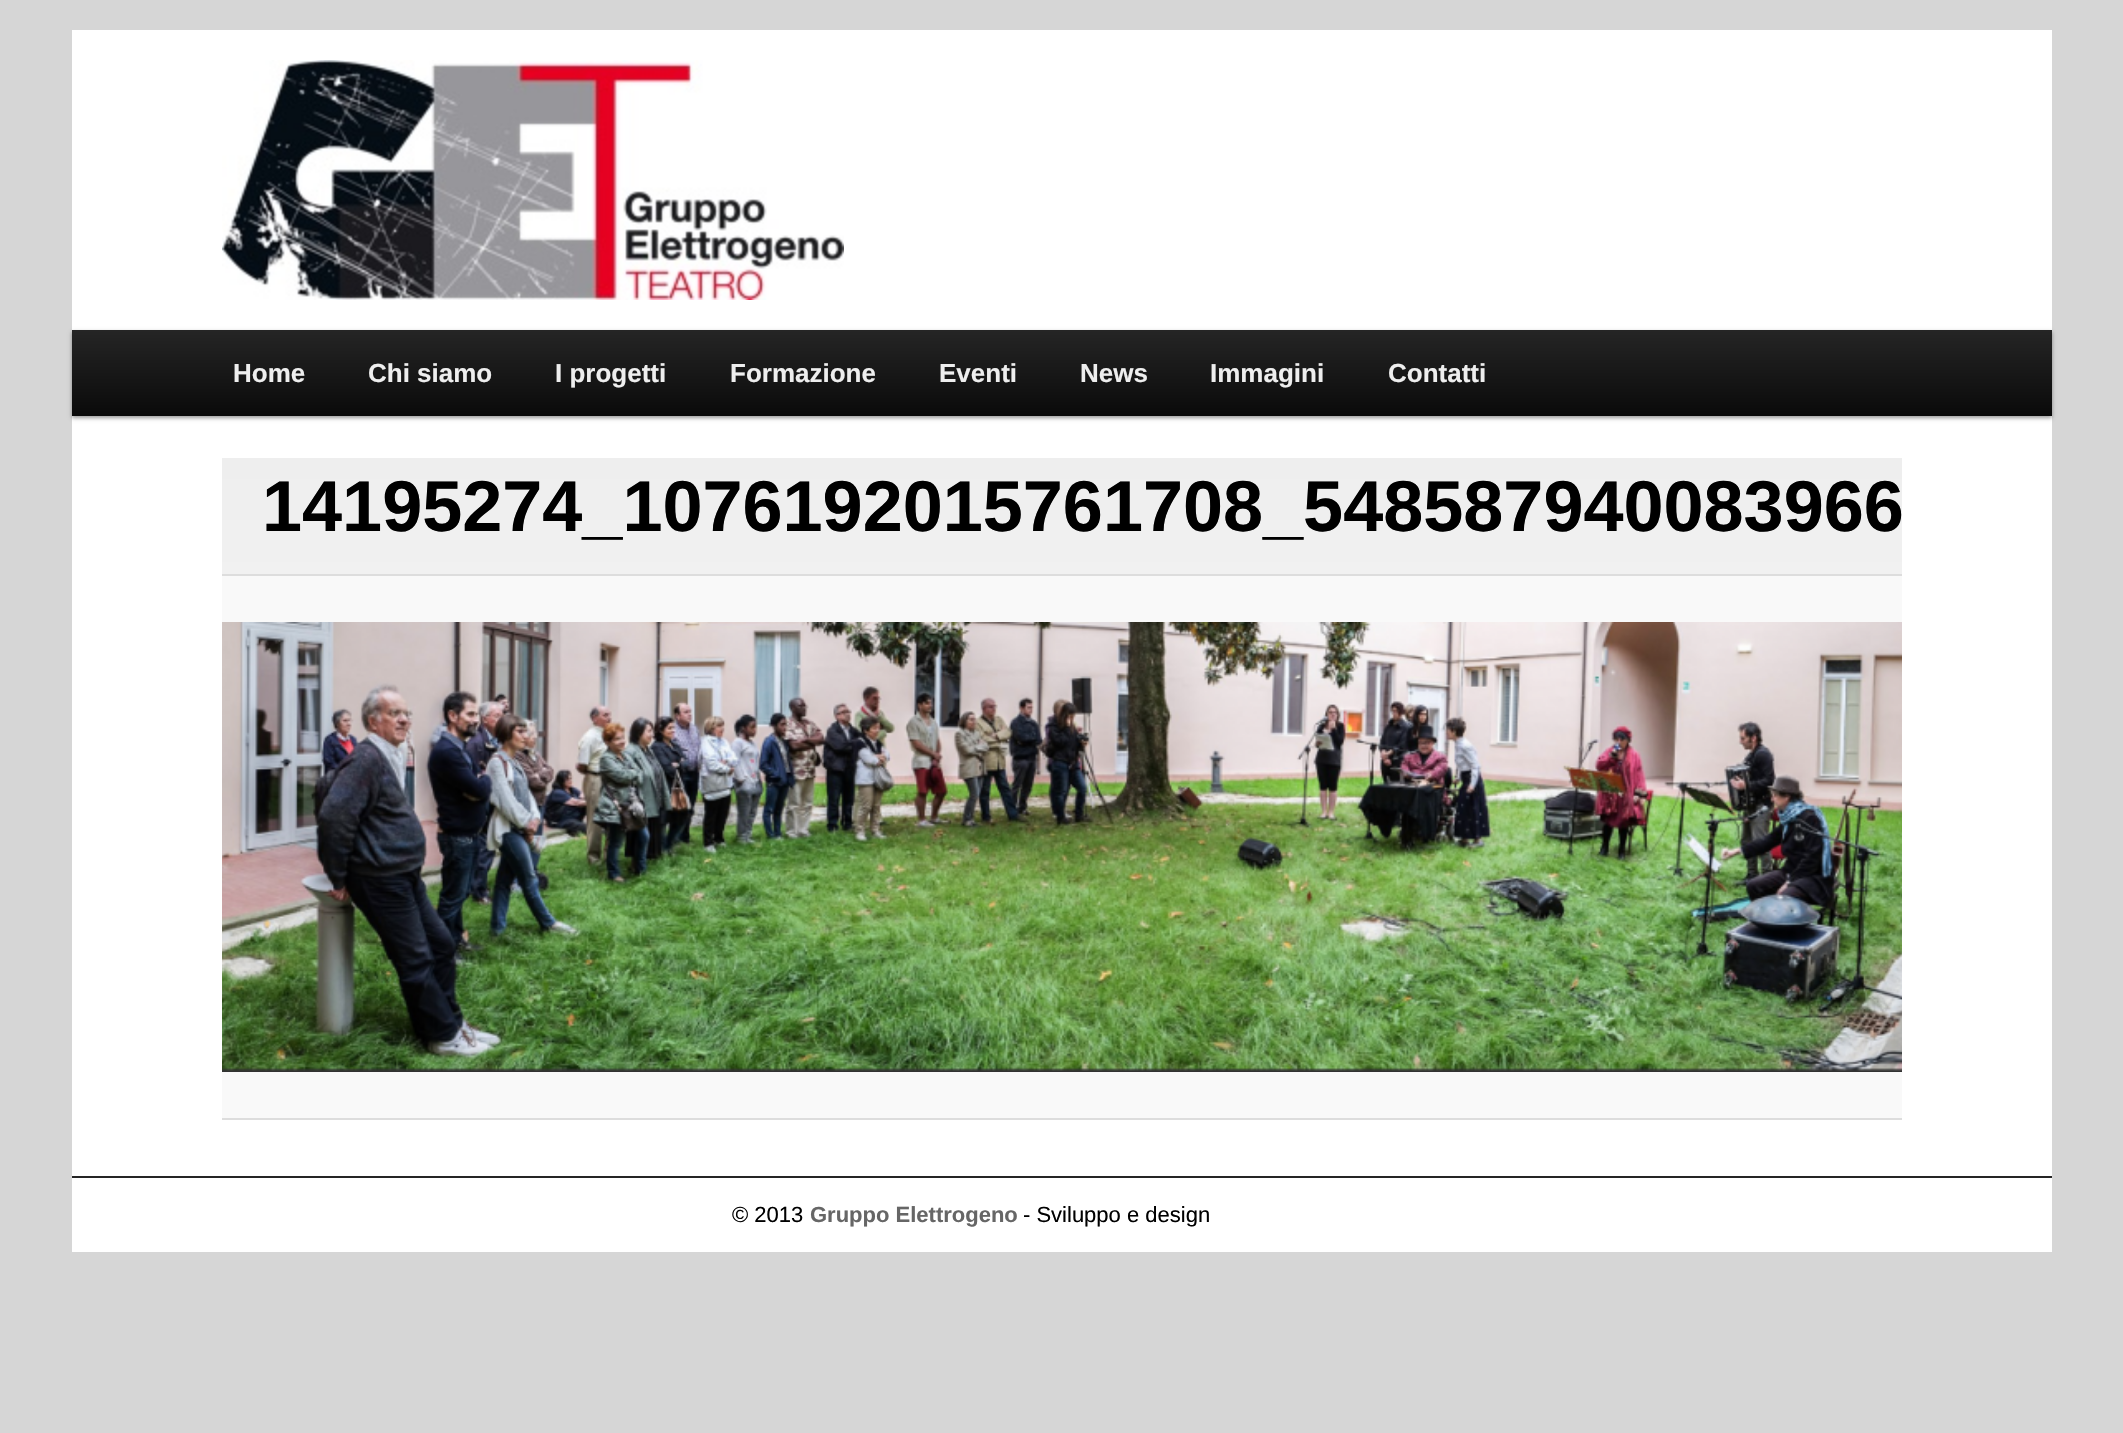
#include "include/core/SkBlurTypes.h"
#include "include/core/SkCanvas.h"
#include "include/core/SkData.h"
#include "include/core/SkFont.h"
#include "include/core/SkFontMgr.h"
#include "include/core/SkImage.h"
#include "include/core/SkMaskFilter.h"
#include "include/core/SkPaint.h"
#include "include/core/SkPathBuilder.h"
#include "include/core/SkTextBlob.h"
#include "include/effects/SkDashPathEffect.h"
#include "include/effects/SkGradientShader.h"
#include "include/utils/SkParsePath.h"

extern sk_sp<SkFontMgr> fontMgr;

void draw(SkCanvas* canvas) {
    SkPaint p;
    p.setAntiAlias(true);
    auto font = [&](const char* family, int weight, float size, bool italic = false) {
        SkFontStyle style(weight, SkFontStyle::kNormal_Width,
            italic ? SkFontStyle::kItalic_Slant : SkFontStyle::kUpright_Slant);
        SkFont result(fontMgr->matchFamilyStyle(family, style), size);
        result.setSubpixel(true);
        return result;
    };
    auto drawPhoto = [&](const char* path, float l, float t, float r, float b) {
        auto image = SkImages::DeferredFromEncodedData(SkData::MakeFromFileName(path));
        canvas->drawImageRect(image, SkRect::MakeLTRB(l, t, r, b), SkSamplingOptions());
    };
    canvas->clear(0xFFD6D6D6);
    p.setColor(0xFFFFFFFF);
    canvas->drawRect(SkRect::MakeLTRB(72, 30, 2052, 1252), p);
    drawPhoto("media/1.png", 222, 60, 844, 300);
    p.setColor(0x66000000);
    p.setMaskFilter(SkMaskFilter::MakeBlur(kNormal_SkBlurStyle, 2));
    canvas->drawRect(SkRect::MakeLTRB(72, 332, 2052, 418), p);
    p.setMaskFilter(nullptr);
    {
        const SkColor colors[] = {0xFF252525, 0xFF0A0A0A};
        const float stops[] = {0, 1};
        const SkPoint ends[] = {{1062, 330}, {1062, 416}};
        p.setShader(SkGradientShader::MakeLinear(ends, colors, stops, 2, SkTileMode::kClamp));
        p.setAlpha(255);
    }
    canvas->drawRect(SkRect::MakeLTRB(72, 330, 2052, 416), p);
    auto font1 = font("Liberation Sans", 700, 26);
    p.setShader(nullptr);
    p.setColor(0xFFEEEEEE);
    {
        const struct { const char* s; float x, y; } items[] = {
            {"Home", 233, 382},
            {"Chi siamo", 368, 382},
            {"I progetti", 555, 382},
            {"Formazione", 730, 382},
            {"Eventi", 939, 382},
            {"News", 1080, 382},
            {"Immagini", 1210, 382},
            {"Contatti", 1388, 382},
        };
        for (auto [s, x, y] : items) {
            canvas->drawString(s, x, y, font1, p);
        }
    }
    {
        const SkColor colors[] = {0xFFEEEEEE, 0xFFFFFFFF};
        const float stops[] = {0, 1};
        const SkPoint ends[] = {{1062, 458}, {1062, 1166}};
        p.setShader(SkGradientShader::MakeLinear(ends, colors, stops, 2, SkTileMode::kClamp));
        p.setAlpha(255);
    }
    canvas->drawRect(SkRect::MakeLTRB(222, 458, 1902, 1062), p);
    auto font2 = font("Liberation Sans", 700, 72);
    p.setShader(nullptr);
    p.setColor(0xFF000000);
    canvas->drawString("14195274_1076192015761708_548587940083966", 262, 531, font2, p);
    {
        const struct { float l, t, r, b; SkColor color; } items[] = {
            {222, 576, 1902, 1118, 0xFFF9F9F9},
            {222, 574, 1902, 576, 0xFFDDDDDD},
            {222, 1118, 1902, 1120, 0xFFDDDDDD},
        };
        for (auto [l, t, r, b, color] : items) {
            p.setColor(color);
            canvas->drawRect(SkRect::MakeLTRB(l, t, r, b), p);
        }
    }
    drawPhoto("media/2.png", 222, 622, 1902, 1072);
    p.setColor(0xFF252525);
    canvas->drawRect(SkRect::MakeLTRB(72, 1176, 2052, 1178), p);
    auto font3 = font("Liberation Sans", 400, 22);
    p.setColor(0xFF000000);
    canvas->drawString("© 2013", 732, 1222, font3, p);
    auto font4 = font("Liberation Sans", 700, 22);
    p.setColor(0xFF666666);
    canvas->drawString("Gruppo Elettrogeno", 810, 1222, font4, p);
    p.setColor(0xFF000000);
    canvas->drawString("- Sviluppo e design", 1023, 1222, font3, p);
}
